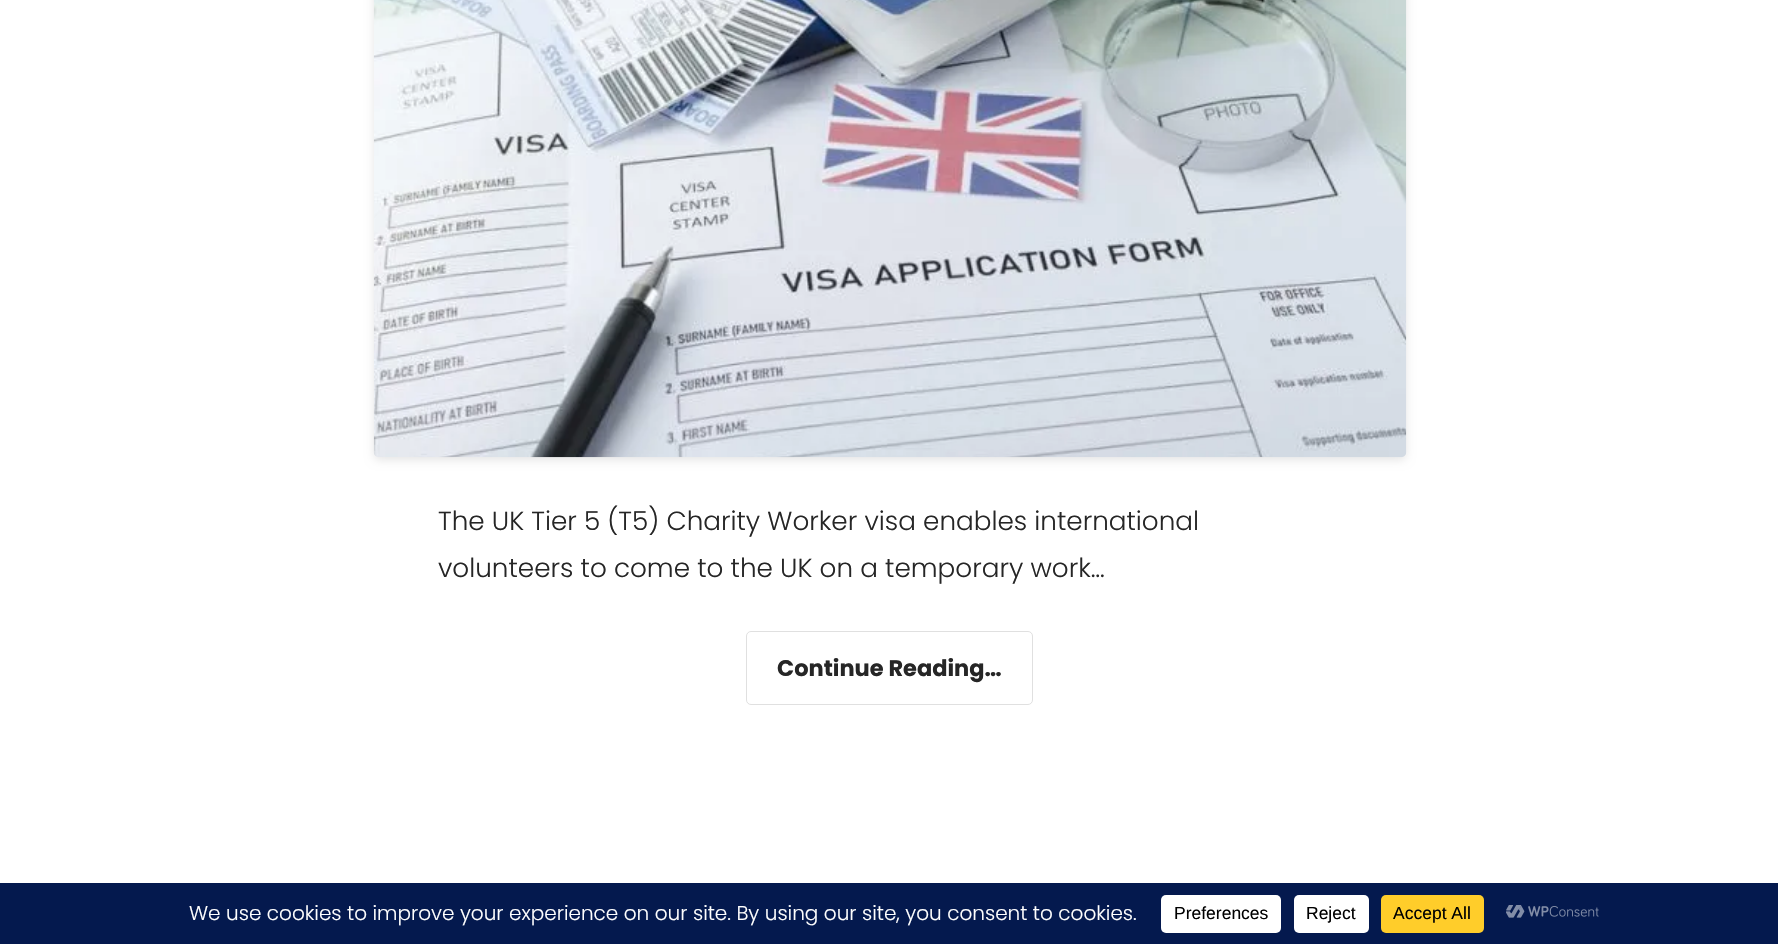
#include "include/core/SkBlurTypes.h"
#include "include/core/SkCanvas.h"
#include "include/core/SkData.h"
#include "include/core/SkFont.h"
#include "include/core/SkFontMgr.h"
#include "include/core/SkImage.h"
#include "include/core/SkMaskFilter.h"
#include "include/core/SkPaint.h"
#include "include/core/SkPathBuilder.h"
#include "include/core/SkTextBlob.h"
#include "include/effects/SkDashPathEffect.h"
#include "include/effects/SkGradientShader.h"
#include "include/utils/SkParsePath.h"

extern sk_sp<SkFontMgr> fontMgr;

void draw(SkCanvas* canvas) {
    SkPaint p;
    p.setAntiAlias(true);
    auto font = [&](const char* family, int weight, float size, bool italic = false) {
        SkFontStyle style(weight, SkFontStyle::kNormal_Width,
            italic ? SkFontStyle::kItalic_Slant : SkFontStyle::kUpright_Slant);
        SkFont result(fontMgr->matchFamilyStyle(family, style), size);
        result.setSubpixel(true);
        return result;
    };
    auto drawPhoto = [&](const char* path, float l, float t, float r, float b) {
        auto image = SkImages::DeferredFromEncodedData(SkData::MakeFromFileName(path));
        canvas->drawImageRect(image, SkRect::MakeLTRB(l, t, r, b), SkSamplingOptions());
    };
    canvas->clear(0xFFFFFFFF);
    p.setColor(0x1A000000);
    p.setMaskFilter(SkMaskFilter::MakeBlur(kNormal_SkBlurStyle, 5));
    canvas->drawRoundRect(SkRect::MakeLTRB(374, -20, 1406, 460), 5, 5, p);
    p.setMaskFilter(nullptr);
    drawPhoto("media/1.png", 373, 0, 1407, 458);
    auto font1 = font("Poppins", 300, 26.25f);
    p.setColor(0xFF262626);
    canvas->drawString("The UK Tier 5 (T5) Charity Worker visa enables international", 438, 530, font1, p);
    canvas->drawString("volunteers to come to the UK on a temporary work…", 438, 577, font1, p);
    p.setStyle(SkPaint::kStroke_Style);
    p.setStrokeWidth(1);
    p.setColor(0xFFE0E0E0);
    canvas->drawRoundRect(SkRect::MakeLTRB(746.5f, 631.5f, 1032.5f, 704.5f), 4.5f, 4.5f, p);
    auto font2 = font("Poppins", 700, 22.5f);
    p.setStyle(SkPaint::kFill_Style);
    p.setColor(0xFF262626);
    canvas->drawString("Continue Reading…", 777, 676, font2, p);
    p.setColor(0xFF04194E);
    canvas->drawRect(SkRect::MakeLTRB(0, 883, 1778, 944), p);
    auto font3 = font("Poppins", 300, 20);
    p.setColor(0xFFFFFFFF);
    canvas->drawString("We use cookies to improve your experience on our site. By using our site, you consent to cookies.", 189, 920, font3, p);
    canvas->drawRoundRect(SkRect::MakeLTRB(1161, 895, 1281, 933), 5, 5, p);
    auto font4 = font("Liberation Sans", 400, 17.5f);
    p.setColor(0xFF000000);
    canvas->drawString("Preferences", 1174, 919, font4, p);
    p.setColor(0xFFFFFFFF);
    canvas->drawRoundRect(SkRect::MakeLTRB(1294, 895, 1369, 933), 5, 5, p);
    p.setColor(0xFF000000);
    canvas->drawString("Reject", 1306, 919, font4, p);
    p.setColor(0xFFFFCD2A);
    canvas->drawRoundRect(SkRect::MakeLTRB(1381, 895, 1484, 933), 5, 5, p);
    p.setColor(0xFF000000);
    canvas->drawString("Accept All", 1393, 919, font4, p);
    drawPhoto("media/2.png", 1506, 905, 1599, 918);
}
